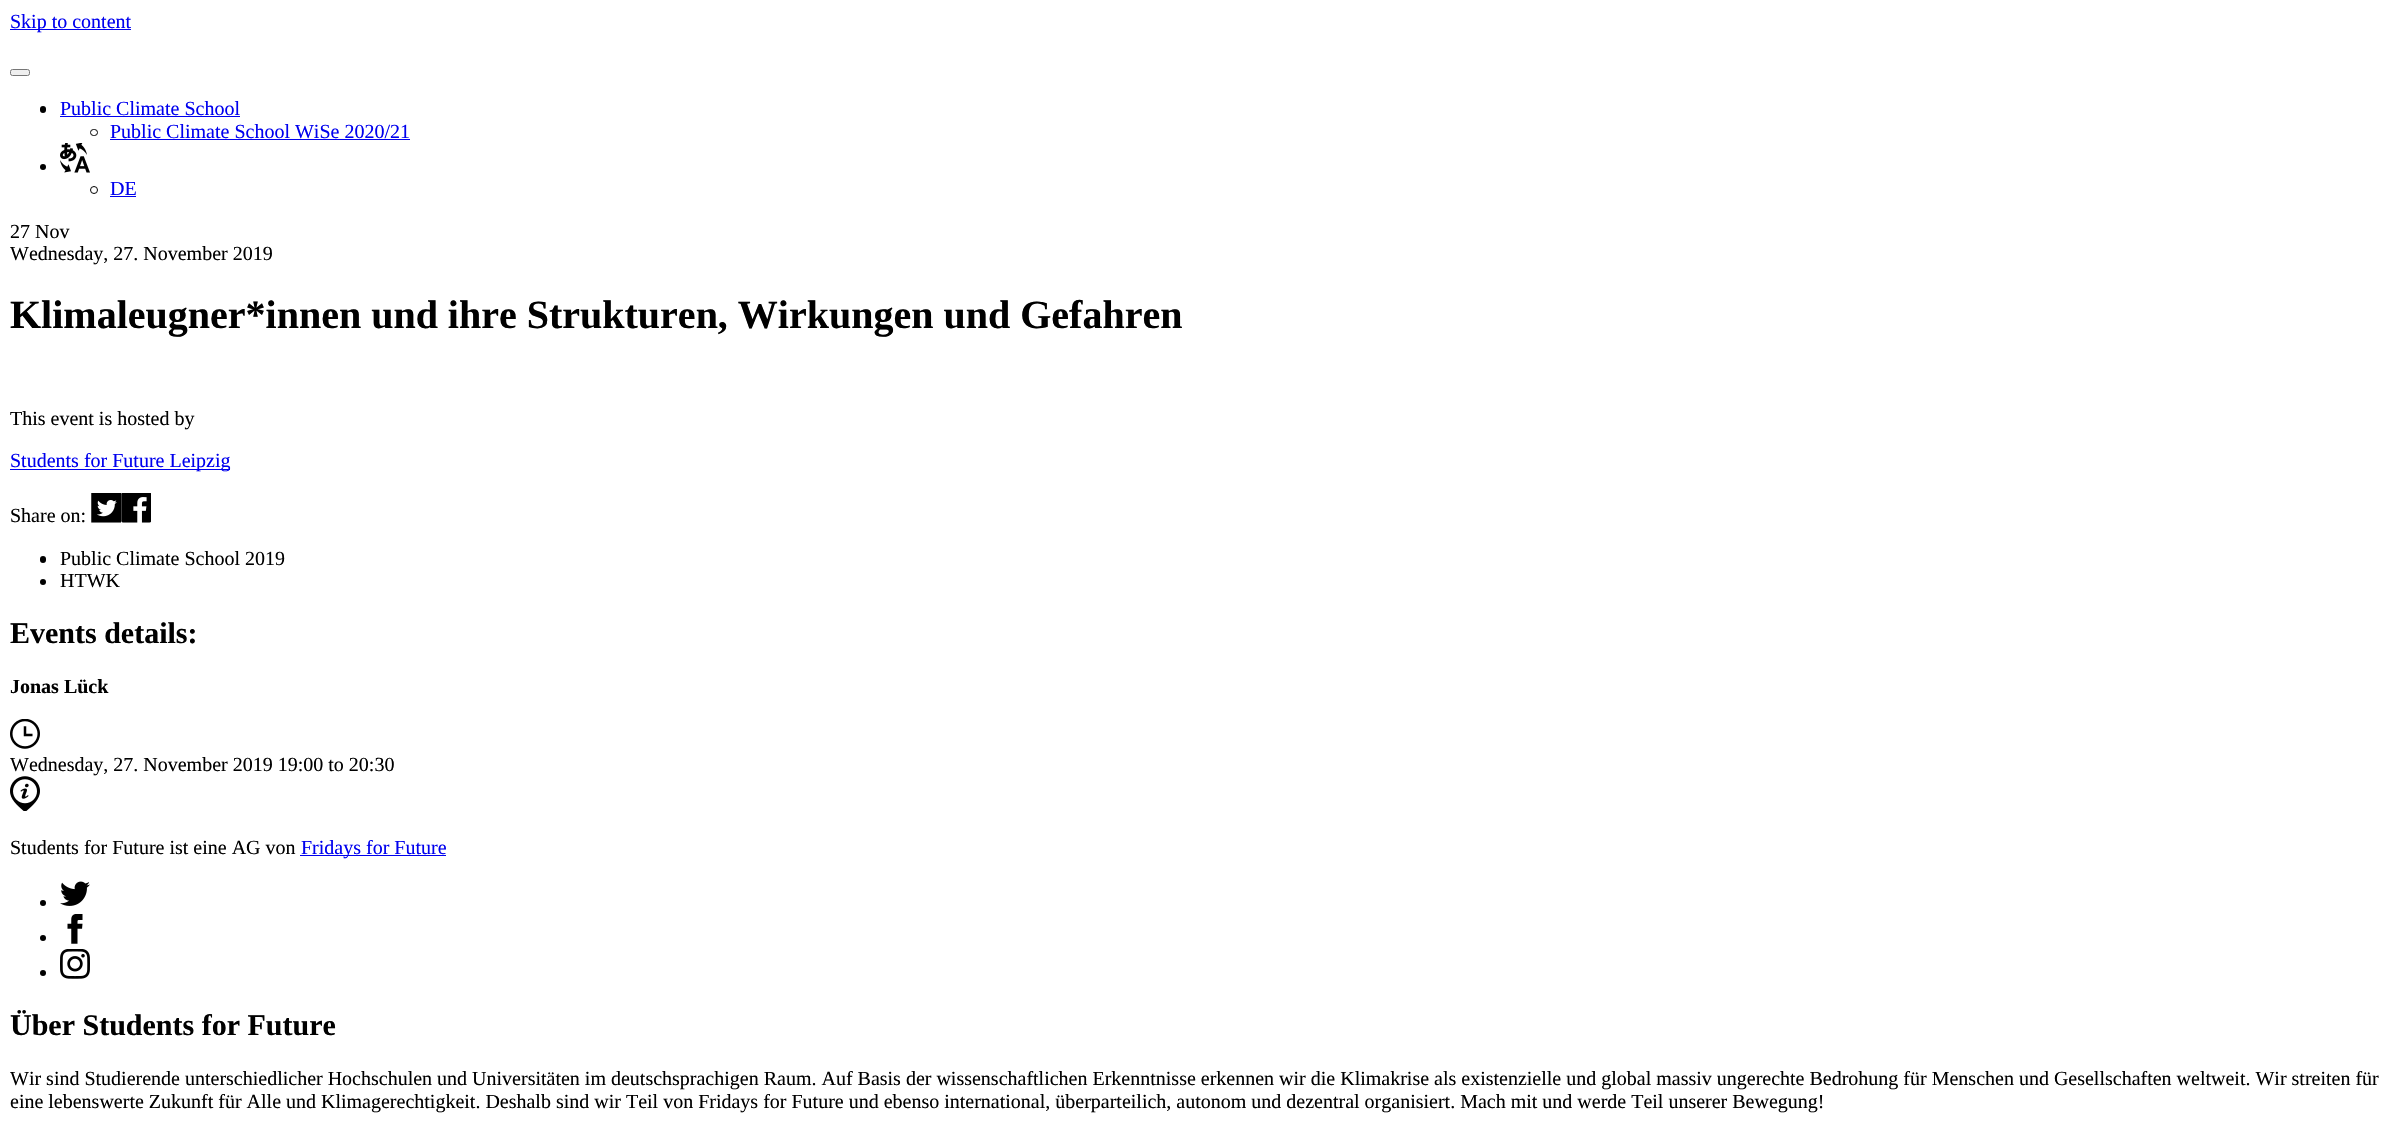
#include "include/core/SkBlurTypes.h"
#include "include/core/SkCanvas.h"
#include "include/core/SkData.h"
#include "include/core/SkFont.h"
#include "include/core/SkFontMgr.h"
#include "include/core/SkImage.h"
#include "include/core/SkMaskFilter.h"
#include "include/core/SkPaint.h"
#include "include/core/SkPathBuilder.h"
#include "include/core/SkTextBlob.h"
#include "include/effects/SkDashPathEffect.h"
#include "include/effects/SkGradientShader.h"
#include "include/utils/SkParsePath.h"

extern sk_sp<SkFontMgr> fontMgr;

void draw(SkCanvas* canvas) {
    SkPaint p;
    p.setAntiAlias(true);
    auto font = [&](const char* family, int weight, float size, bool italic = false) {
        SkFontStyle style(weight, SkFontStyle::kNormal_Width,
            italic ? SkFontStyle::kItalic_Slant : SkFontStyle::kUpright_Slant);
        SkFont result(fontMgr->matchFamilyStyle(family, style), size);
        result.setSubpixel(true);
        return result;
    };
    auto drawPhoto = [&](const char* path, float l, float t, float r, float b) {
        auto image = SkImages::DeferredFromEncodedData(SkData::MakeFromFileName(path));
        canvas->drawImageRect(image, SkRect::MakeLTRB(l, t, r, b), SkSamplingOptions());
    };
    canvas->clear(0xFFFFFFFF);
    p.setColor(0xFF0000EE);
    canvas->drawRect(SkRect::MakeLTRB(10, 29, 131, 30), p);
    auto font1 = font("Liberation Serif", 400, 20);
    canvas->drawString("Skip to content", 10, 28, font1, p);
    p.setColor(0xFFEFEFEF);
    canvas->drawRoundRect(SkRect::MakeLTRB(10.5f, 69.5f, 29.5f, 75.5f), 2, 2, p);
    p.setStyle(SkPaint::kStroke_Style);
    p.setStrokeWidth(1);
    p.setColor(0xFF767676);
    canvas->drawRoundRect(SkRect::MakeLTRB(10.5f, 69.5f, 29.5f, 75.5f), 2, 2, p);
    p.setStyle(SkPaint::kFill_Style);
    p.setColor(0xFF000000);
    canvas->drawRoundRect(SkRect::MakeLTRB(40, 106, 46, 113), 3, 3, p);
    p.setColor(0xFF0000EE);
    canvas->drawString("Public Climate School", 60, 115, font1, p);
    canvas->drawRect(SkRect::MakeLTRB(60, 116, 240, 117), p);
    p.setStyle(SkPaint::kStroke_Style);
    p.setColor(0xFF000000);
    canvas->drawRoundRect(SkRect::MakeLTRB(90.5f, 129.5f, 97.5f, 135.5f), 3, 3, p);
    p.setStyle(SkPaint::kFill_Style);
    p.setColor(0xFF0000EE);
    canvas->drawString("Public Climate School WiSe 2020/21", 110, 138, font1, p);
    canvas->drawRect(SkRect::MakeLTRB(110, 139, 410, 140), p);
    p.setColor(0xFF000000);
    canvas->drawCircle(43, 167, 3, p);
    drawPhoto("media/1.png", 60, 143, 90, 173);
    p.setStyle(SkPaint::kStroke_Style);
    canvas->drawCircle(94, 190, 3.5f, p);
    p.setStyle(SkPaint::kFill_Style);
    p.setColor(0xFF0000EE);
    canvas->drawString("DE", 110, 195, font1, p);
    canvas->drawRect(SkRect::MakeLTRB(110, 196, 136, 197), p);
    p.setColor(0xFF000000);
    canvas->drawString("27 Nov", 10, 238, font1, p);
    canvas->drawString("Wednesday, 27. November 2019", 10, 260, font1, p);
    auto font2 = font("Liberation Serif", 700, 40);
    canvas->drawString("Klimaleugner*innen und ihre Strukturen, Wirkungen und Gefahren", 10, 328, font2, p);
    canvas->drawString("This event is hosted by", 10, 425, font1, p);
    p.setColor(0xFF0000EE);
    canvas->drawRect(SkRect::MakeLTRB(10, 469, 230, 470), p);
    canvas->drawString("Students for Future Leipzig", 10, 467, font1, p);
    p.setColor(0xFF000000);
    canvas->drawString("Share on:", 10, 522, font1, p);
    drawPhoto("media/2.png", 91, 493, 121, 523);
    drawPhoto("media/3.png", 121, 493, 151, 523);
    canvas->drawRoundRect(SkRect::MakeLTRB(40, 556, 46, 563), 3, 3, p);
    canvas->drawString("Public Climate School 2019", 60, 565, font1, p);
    canvas->drawCircle(43, 582, 3, p);
    canvas->drawString("HTWK", 60, 587, font1, p);
    auto font3 = font("Liberation Serif", 700, 30);
    canvas->drawString("Events details:", 10, 643, font3, p);
    auto font4 = font("Liberation Serif", 700, 20);
    canvas->drawString("Jonas Lück", 10, 693, font4, p);
    drawPhoto("media/4.png", 10, 719, 40, 749);
    canvas->drawString("Wednesday, 27. November 2019 19:00 to 20:30", 10, 771, font1, p);
    drawPhoto("media/5.png", 10, 776, 40, 811);
    canvas->drawString("Students for Future ist eine AG von", 10, 854, font1, p);
    p.setColor(0xFF0000EE);
    canvas->drawRect(SkRect::MakeLTRB(300, 855, 446, 856), p);
    canvas->drawString("Fridays for Future", 301, 854, font1, p);
    p.setColor(0xFF000000);
    canvas->drawCircle(43, 903, 3, p);
    drawPhoto("media/6.png", 60, 881, 90, 906);
    canvas->drawCircle(43, 938, 3, p);
    drawPhoto("media/7.png", 67, 914, 83, 944);
    canvas->drawCircle(43, 973, 3, p);
    drawPhoto("media/8.png", 60, 949, 90, 979);
    canvas->drawString("Über Students for Future", 10, 1035, font3, p);
    canvas->drawString("Wir sind Studierende unterschiedlicher Hochschulen und Universitäten im deutschsprachigen Raum. Auf Basis der wissenschaftlichen Erkenntnisse erkennen wir die Klimakrise als existenzielle und global massiv ungerechte Bedrohung für Menschen und Gesellschaften weltweit. Wir streiten für", 10, 1085, font1, p);
    canvas->drawString("eine lebenswerte Zukunft für Alle und Klimagerechtigkeit. Deshalb sind wir Teil von Fridays for Future und ebenso international, überparteilich, autonom und dezentral organisiert. Mach mit und werde Teil unserer Bewegung!", 10, 1108, font1, p);
}
